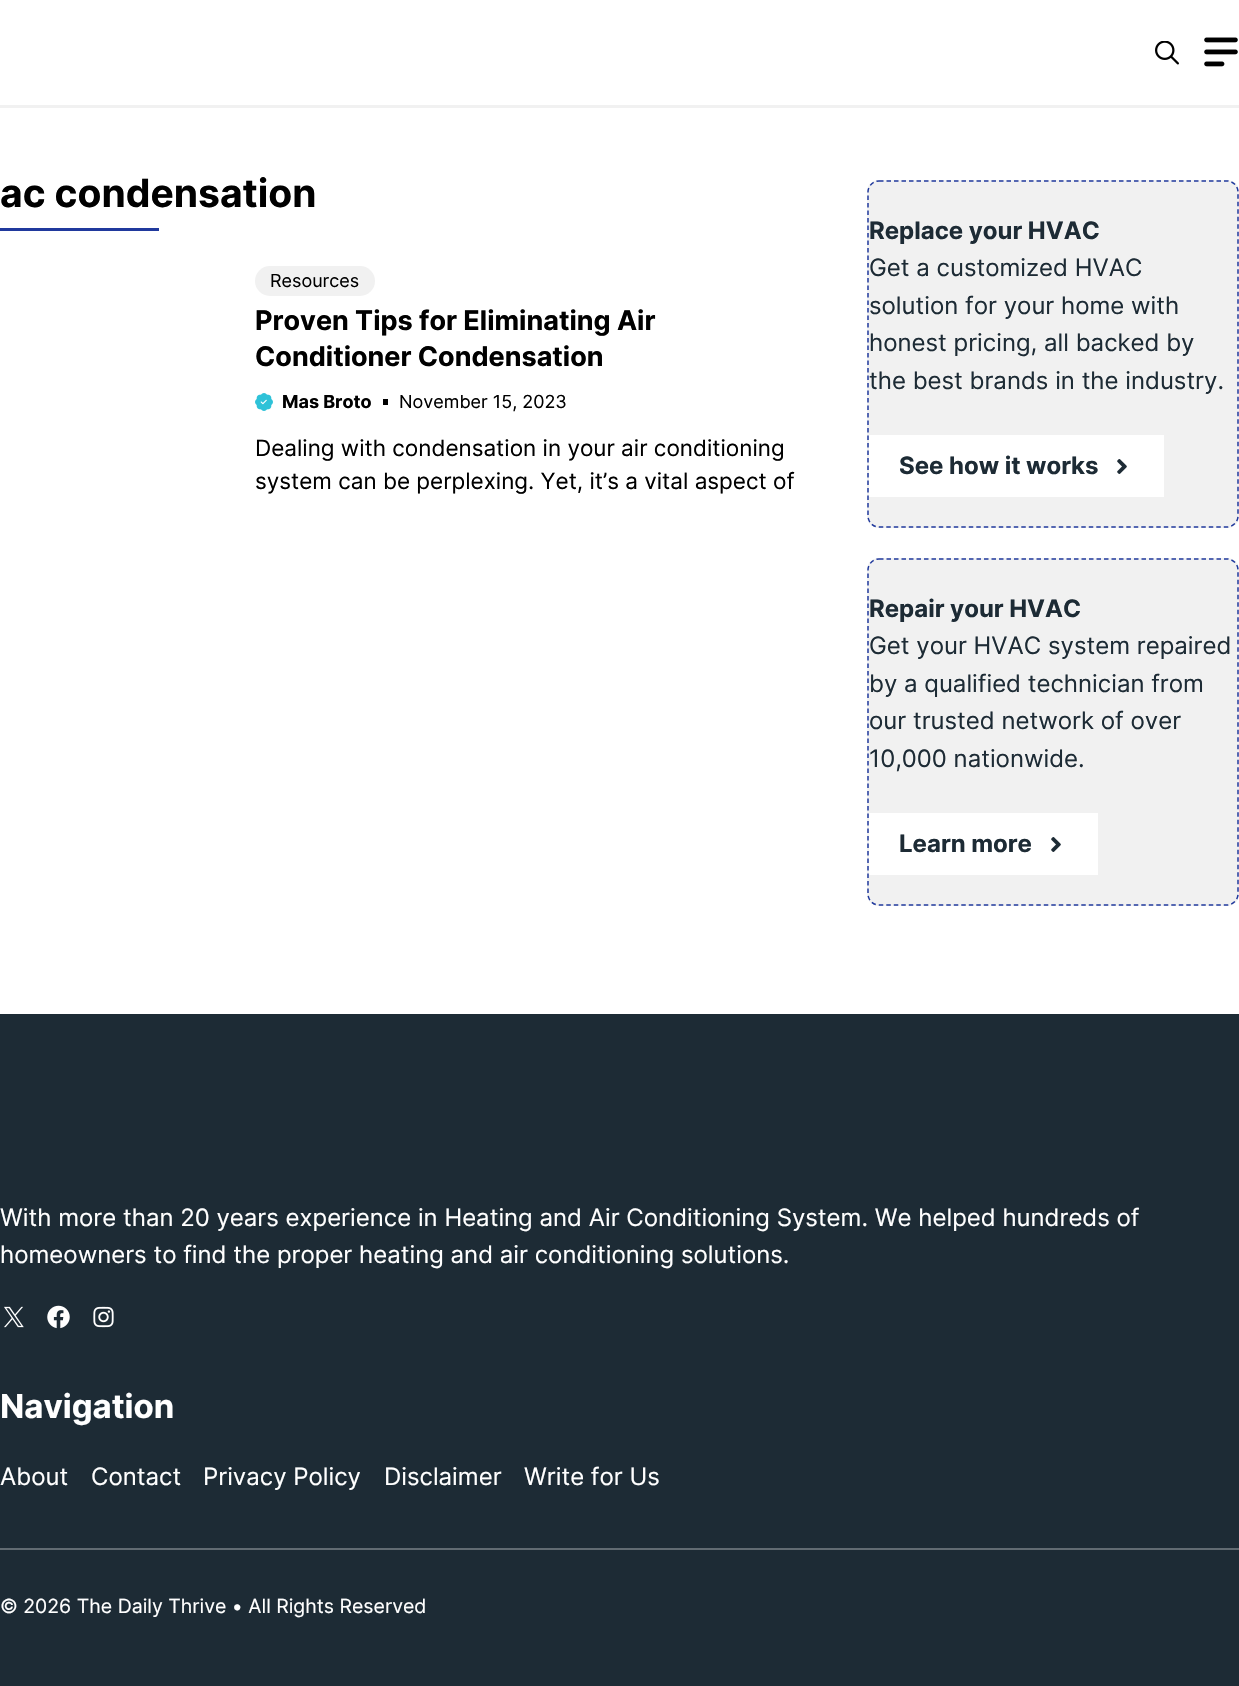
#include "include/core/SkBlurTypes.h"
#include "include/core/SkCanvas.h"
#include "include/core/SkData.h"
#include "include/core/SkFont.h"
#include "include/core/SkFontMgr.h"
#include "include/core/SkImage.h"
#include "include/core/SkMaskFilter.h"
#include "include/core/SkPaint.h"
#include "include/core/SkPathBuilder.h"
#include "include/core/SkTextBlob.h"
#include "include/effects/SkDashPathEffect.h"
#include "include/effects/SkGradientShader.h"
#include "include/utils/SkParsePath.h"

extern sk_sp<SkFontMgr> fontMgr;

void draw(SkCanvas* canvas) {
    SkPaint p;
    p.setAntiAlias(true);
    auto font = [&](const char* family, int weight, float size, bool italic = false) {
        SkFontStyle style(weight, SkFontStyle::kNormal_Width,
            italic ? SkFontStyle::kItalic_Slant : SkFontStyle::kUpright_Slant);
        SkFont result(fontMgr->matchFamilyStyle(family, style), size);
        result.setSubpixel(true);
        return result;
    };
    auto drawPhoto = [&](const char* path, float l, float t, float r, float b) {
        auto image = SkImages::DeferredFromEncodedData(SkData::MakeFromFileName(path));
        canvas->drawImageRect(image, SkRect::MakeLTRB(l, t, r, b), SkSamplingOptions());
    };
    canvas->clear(0xFFFFFFFF);
    p.setColor(0xFFF1F1F1);
    canvas->drawRect(SkRect::MakeLTRB(0, 105, 1239, 108), p);
    drawPhoto("media/1.png", 1155, 41, 1179, 65);
    drawPhoto("media/2.png", 1204, 37, 1238, 67);
    auto font1 = font("Inter", 700, 39);
    p.setColor(0xFF000000);
    canvas->drawString("ac condensation", 0, 207, font1, p);
    p.setColor(0xFF20399D);
    canvas->drawRect(SkRect::MakeLTRB(0, 228, 159, 231), p);
    p.setColor(0xFFF1F1F1);
    canvas->drawRoundRect(SkRect::MakeLTRB(255, 266, 375, 296), 15, 15, p);
    auto font2 = font("Inter", 400, 18);
    p.setColor(0xFF000000);
    canvas->drawString("Resources", 270, 287, font2, p);
    auto font3 = font("Inter", 700, 27);
    canvas->drawString("Proven Tips for Eliminating Air", 255, 330, font3, p);
    canvas->drawString("Conditioner Condensation", 255, 366, font3, p);
    drawPhoto("media/3.png", 255, 393, 273, 411);
    auto font4 = font("Inter", 700, 18);
    canvas->drawString("Mas Broto", 282, 408, font4, p);
    canvas->drawRect(SkRect::MakeLTRB(383, 399, 388, 405), p);
    canvas->drawString("November 15, 2023", 399, 408, font2, p);
    auto font5 = font("Inter", 400, 22.5f);
    canvas->drawString("Dealing with condensation in your air conditioning", 255, 456, font5, p);
    canvas->drawString("system can be perplexing. Yet, it’s a vital aspect of", 255, 489, font5, p);
    p.setColor(0xFFF1F1F1);
    canvas->drawRoundRect(SkRect::MakeLTRB(867, 180, 1239, 528), 12, 12, p);
    p.setStyle(SkPaint::kStroke_Style);
    p.setStrokeWidth(1.5f);
    p.setColor(0xFF20399D);
    p.setPathEffect(SkDashPathEffect::Make({{4.5f, 3}}, 0));
    canvas->drawPath(SkPathBuilder().moveTo(879, 181).lineTo(1227, 181).cubicTo(1233, 181, 1238, 186, 1238, 192).lineTo(1238, 516).cubicTo(1238, 522, 1233, 527, 1227, 527).lineTo(879, 527).cubicTo(873, 527, 868, 522, 868, 516).lineTo(868, 192).cubicTo(868, 186, 873, 181, 879, 181).close().detach(), p);
    p.setPathEffect(nullptr);
    auto font6 = font("Inter", 700, 24);
    p.setStyle(SkPaint::kFill_Style);
    p.setColor(0xFF1D2B35);
    canvas->drawString("Replace your HVAC", 869, 239, font6, p);
    auto font7 = font("Inter", 400, 24);
    {
        const struct { const char* s; float x, y; } items[] = {
            {"Get a customized HVAC", 869, 276},
            {"solution for your home with", 869, 314},
            {"honest pricing, all backed by", 869, 351},
            {"the best brands in the industry.", 869, 389},
        };
        for (auto [s, x, y] : items) {
            canvas->drawString(s, x, y, font7, p);
        }
    }
    p.setColor(0xFFFFFFFF);
    canvas->drawRect(SkRect::MakeLTRB(869, 435, 1164, 497), p);
    p.setColor(0xFF1D2B35);
    canvas->drawString("See how it works", 899, 474, font6, p);
    drawPhoto("media/4.png", 1117, 459, 1127, 474);
    p.setColor(0xFFF1F1F1);
    canvas->drawRoundRect(SkRect::MakeLTRB(867, 558, 1239, 906), 12, 12, p);
    p.setStyle(SkPaint::kStroke_Style);
    p.setColor(0xFF20399D);
    p.setPathEffect(SkDashPathEffect::Make({{4.5f, 3}}, 0));
    canvas->drawPath(SkPathBuilder().moveTo(879, 559).lineTo(1227, 559).cubicTo(1233, 559, 1238, 564, 1238, 570).lineTo(1238, 894).cubicTo(1238, 900, 1233, 905, 1227, 905).lineTo(879, 905).cubicTo(873, 905, 868, 900, 868, 894).lineTo(868, 570).cubicTo(868, 564, 873, 559, 879, 559).close().detach(), p);
    p.setPathEffect(nullptr);
    p.setStyle(SkPaint::kFill_Style);
    p.setColor(0xFF1D2B35);
    canvas->drawString("Repair your HVAC", 869, 617, font6, p);
    {
        const struct { const char* s; float x, y; } items[] = {
            {"Get your HVAC system repaired", 869, 654},
            {"by a qualified technician from", 869, 692},
            {"our trusted network of over", 869, 729},
            {"10,000 nationwide.", 869, 767},
        };
        for (auto [s, x, y] : items) {
            canvas->drawString(s, x, y, font7, p);
        }
    }
    p.setColor(0xFFFFFFFF);
    canvas->drawRect(SkRect::MakeLTRB(869, 813, 1098, 875), p);
    p.setColor(0xFF1D2B35);
    canvas->drawString("Learn more", 899, 852, font6, p);
    drawPhoto("media/4.png", 1051, 837, 1061, 852);
    canvas->drawRect(SkRect::MakeLTRB(0, 1014, 1239, 1686), p);
    p.setColor(0xFFFFFFFF);
    canvas->drawString("With more than 20 years experience in Heating and Air Conditioning System. We helped hundreds of", 0, 1226, font7, p);
    canvas->drawString("homeowners to find the proper heating and air conditioning solutions.", 0, 1263, font7, p);
    drawPhoto("media/5.png", 4, 1306, 24, 1328);
    drawPhoto("media/6.png", 47, 1305, 70, 1329);
    drawPhoto("media/7.png", 93, 1306, 114, 1328);
    auto font8 = font("Inter", 700, 33);
    canvas->drawString("Navigation", 0, 1418, font8, p);
    {
        const struct { const char* s; float x, y; } items[] = {
            {"About", 0, 1485},
            {"Contact", 91, 1485},
            {"Privacy Policy", 203, 1485},
            {"Disclaimer", 384, 1485},
            {"Write for Us", 524, 1485},
        };
        for (auto [s, x, y] : items) {
            canvas->drawString(s, x, y, font7, p);
        }
    }
    p.setColor(0xFF616B72);
    canvas->drawRect(SkRect::MakeLTRB(0, 1548, 1239, 1550), p);
    auto font9 = font("Inter", 400, 19.5f);
    p.setColor(0xFFFFFFFF);
    canvas->drawString("© 2026 The Daily Thrive • All Rights Reserved", 0, 1613, font9, p);
}
